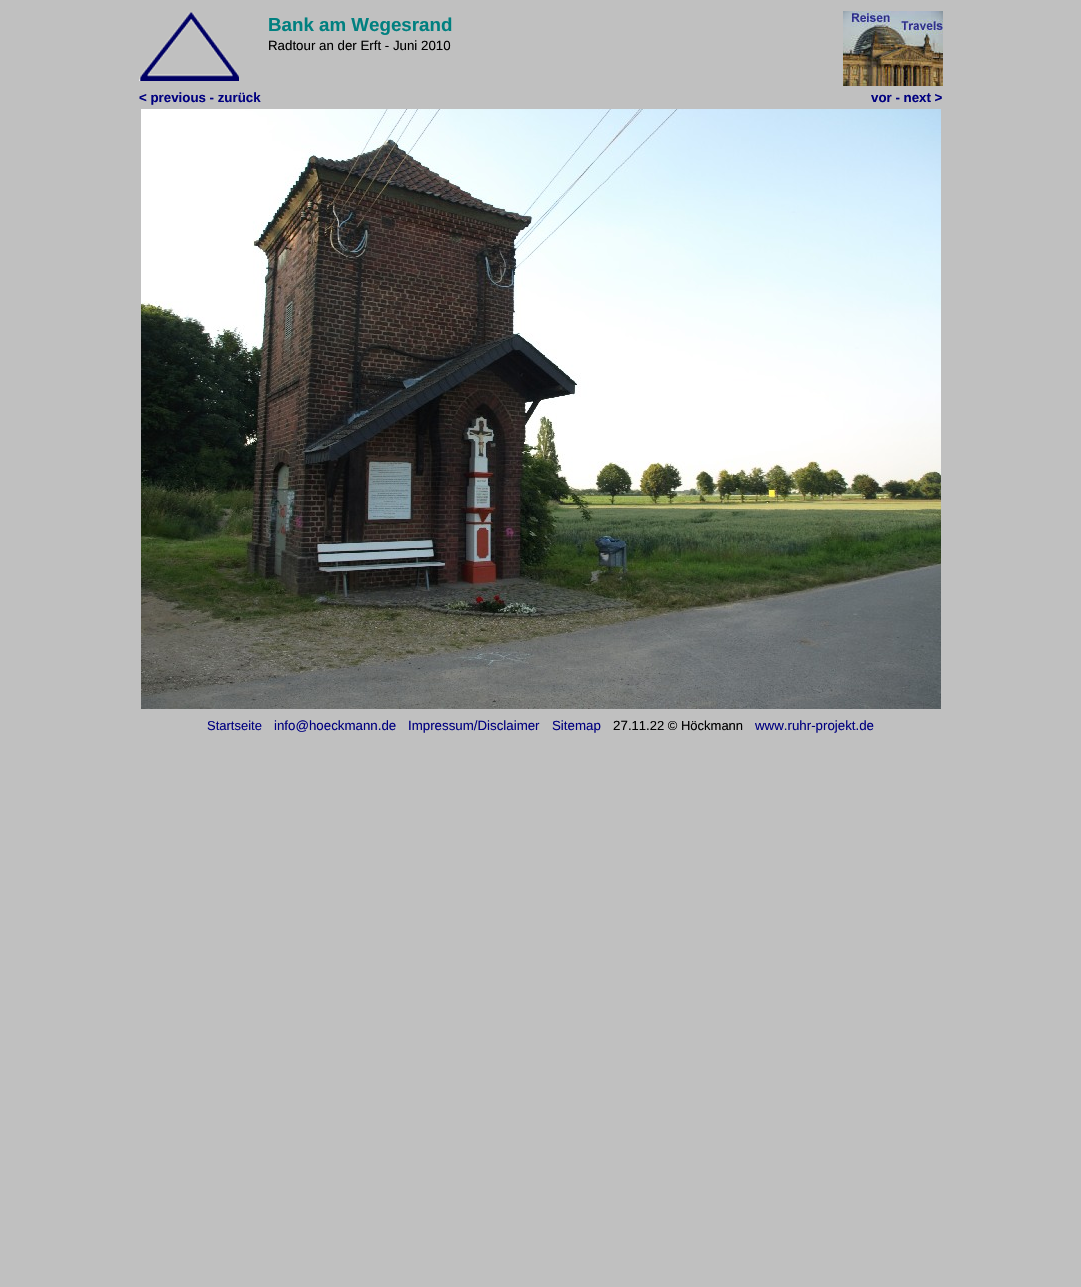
#include "include/core/SkBlurTypes.h"
#include "include/core/SkCanvas.h"
#include "include/core/SkData.h"
#include "include/core/SkFont.h"
#include "include/core/SkFontMgr.h"
#include "include/core/SkImage.h"
#include "include/core/SkMaskFilter.h"
#include "include/core/SkPaint.h"
#include "include/core/SkPathBuilder.h"
#include "include/core/SkTextBlob.h"
#include "include/effects/SkDashPathEffect.h"
#include "include/effects/SkGradientShader.h"
#include "include/utils/SkParsePath.h"

extern sk_sp<SkFontMgr> fontMgr;

void draw(SkCanvas* canvas) {
    SkPaint p;
    p.setAntiAlias(true);
    auto font = [&](const char* family, int weight, float size, bool italic = false) {
        SkFontStyle style(weight, SkFontStyle::kNormal_Width,
            italic ? SkFontStyle::kItalic_Slant : SkFontStyle::kUpright_Slant);
        SkFont result(fontMgr->matchFamilyStyle(family, style), size);
        result.setSubpixel(true);
        return result;
    };
    auto drawPhoto = [&](const char* path, float l, float t, float r, float b) {
        auto image = SkImages::DeferredFromEncodedData(SkData::MakeFromFileName(path));
        canvas->drawImageRect(image, SkRect::MakeLTRB(l, t, r, b), SkSamplingOptions());
    };
    canvas->clear(0xFFC0C0C0);
    drawPhoto("media/1.png", 139, 12, 239, 81);
    auto font1 = font("Liberation Sans", 700, 18.75f);
    p.setColor(0xFF008080);
    canvas->drawString("Bank am Wegesrand", 268, 31, font1, p);
    auto font2 = font("Liberation Sans", 400, 13.3f);
    p.setColor(0xFF000000);
    canvas->drawString("Radtour an der Erft - Juni 2010", 268, 50, font2, p);
    drawPhoto("media/2.png", 843, 11, 943, 86);
    auto font3 = font("Liberation Sans", 700, 13.3f);
    p.setColor(0xFF000080);
    canvas->drawString("< previous - zurück", 139, 102, font3, p);
    canvas->drawString("vor - next >", 871, 102, font3, p);
    drawPhoto("media/3.png", 141, 109, 941, 709);
    auto font4 = font("Liberation Sans", 400, 13);
    canvas->drawString("Startseite", 207, 730, font4, p);
    {
        const struct { const char* s; float x, y; } items[] = {
            {"info@hoeckmann.de", 274, 730},
            {"Impressum/Disclaimer", 408, 730},
            {"Sitemap", 552, 730},
        };
        for (auto [s, x, y] : items) {
            canvas->drawString(s, x, y, font2, p);
        }
    }
    p.setColor(0xFF000000);
    canvas->drawString("27", 613, 730, font2, p);
    canvas->drawString(".11.22 © Höckmann", 628, 730, font4, p);
    p.setColor(0xFF000080);
    canvas->drawString("www.ruhr-projekt.de", 755, 730, font2, p);
}
